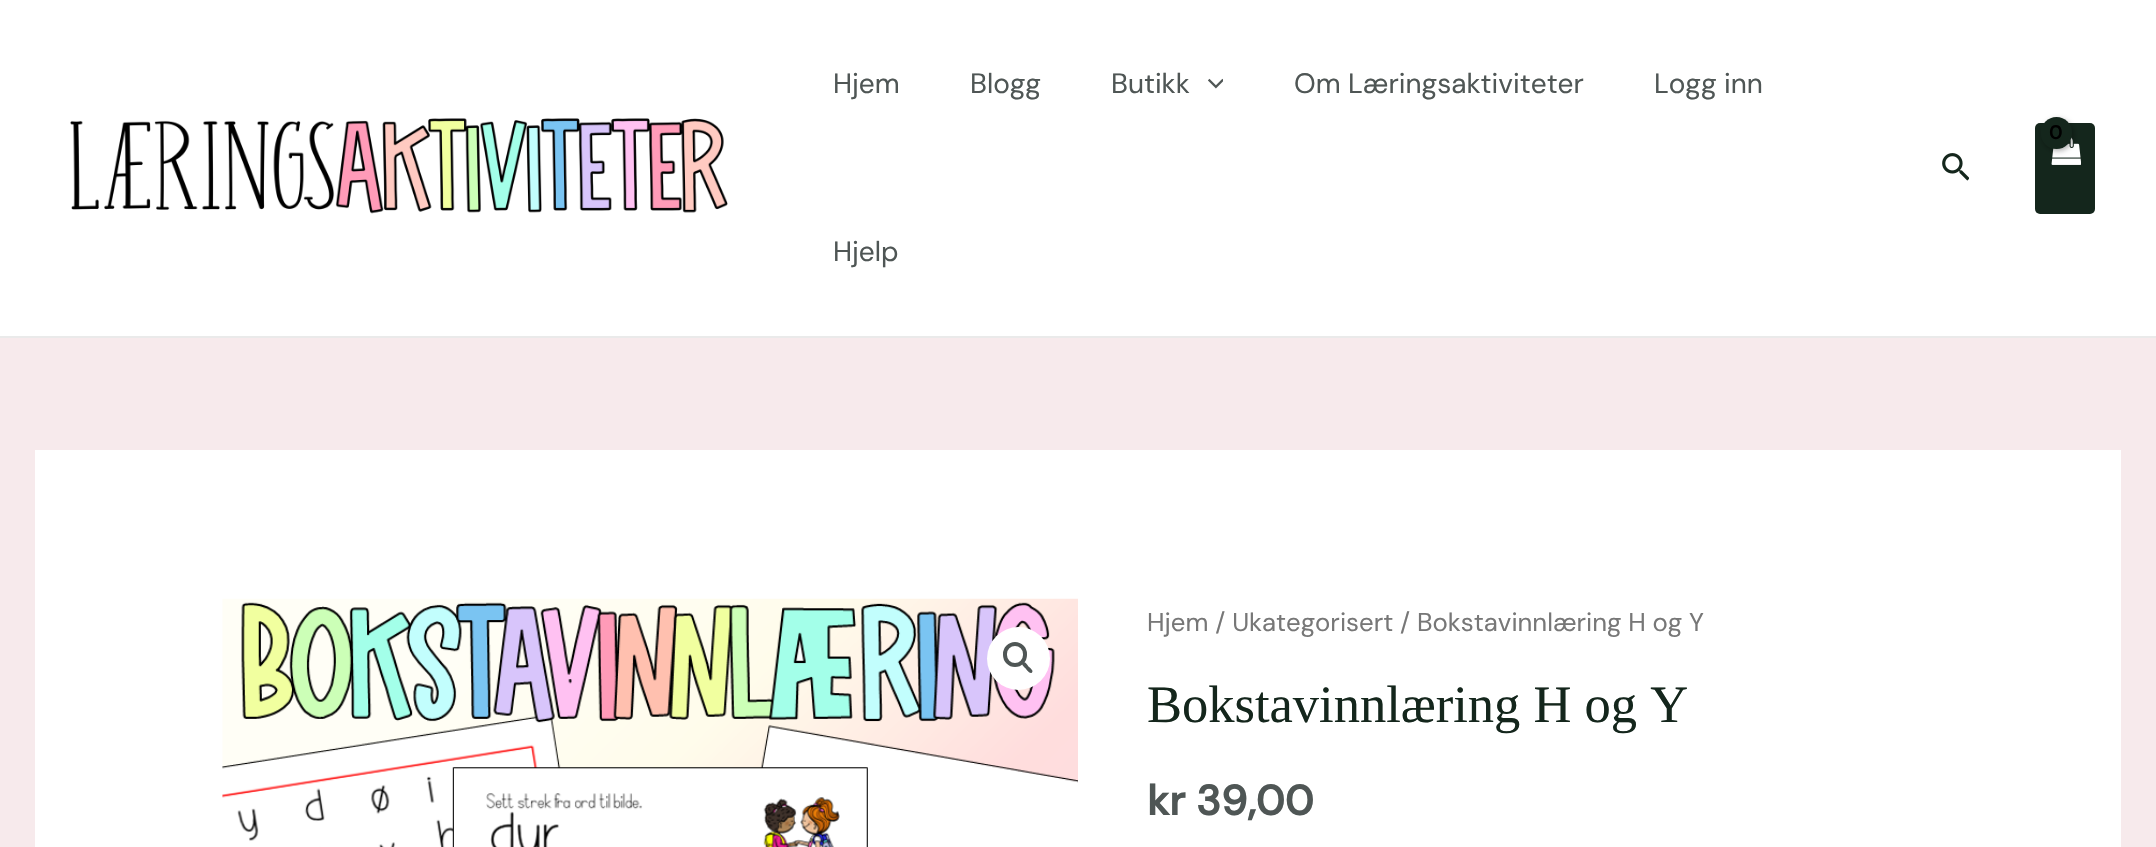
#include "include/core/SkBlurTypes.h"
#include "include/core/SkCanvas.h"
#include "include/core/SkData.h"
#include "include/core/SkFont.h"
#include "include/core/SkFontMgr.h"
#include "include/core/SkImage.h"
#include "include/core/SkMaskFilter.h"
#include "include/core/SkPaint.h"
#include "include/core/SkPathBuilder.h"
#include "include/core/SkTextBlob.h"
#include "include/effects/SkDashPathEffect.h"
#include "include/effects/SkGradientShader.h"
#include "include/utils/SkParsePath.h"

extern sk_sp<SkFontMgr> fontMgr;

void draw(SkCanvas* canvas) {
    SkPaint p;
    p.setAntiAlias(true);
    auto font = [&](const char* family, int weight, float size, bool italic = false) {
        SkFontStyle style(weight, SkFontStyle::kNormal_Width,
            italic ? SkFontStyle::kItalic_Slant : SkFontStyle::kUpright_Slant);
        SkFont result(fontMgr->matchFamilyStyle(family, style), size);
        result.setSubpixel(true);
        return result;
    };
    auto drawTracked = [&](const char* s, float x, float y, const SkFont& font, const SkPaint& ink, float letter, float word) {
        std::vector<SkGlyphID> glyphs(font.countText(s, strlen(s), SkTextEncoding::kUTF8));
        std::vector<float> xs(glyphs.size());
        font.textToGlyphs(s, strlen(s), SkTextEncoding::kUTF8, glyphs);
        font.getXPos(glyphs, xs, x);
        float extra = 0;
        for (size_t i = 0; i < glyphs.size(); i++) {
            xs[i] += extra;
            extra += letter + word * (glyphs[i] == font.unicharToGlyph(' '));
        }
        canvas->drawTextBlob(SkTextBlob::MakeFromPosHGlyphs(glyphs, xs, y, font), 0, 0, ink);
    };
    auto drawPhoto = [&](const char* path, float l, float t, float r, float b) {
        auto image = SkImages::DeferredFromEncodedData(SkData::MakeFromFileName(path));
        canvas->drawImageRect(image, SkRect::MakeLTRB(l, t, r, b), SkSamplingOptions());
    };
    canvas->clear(0xFFF7EAEC);
    p.setColor(0xFFFFFFFF);
    canvas->drawRect(SkRect::MakeLTRB(0, 0, 2156, 336), p);
    p.setColor(0xFFEAEAEA);
    canvas->drawRect(SkRect::MakeLTRB(0, 336, 2156, 338), p);
    drawPhoto("media/1.png", 70, 118, 728, 214);
    auto font1 = font("DM Sans", 400, 28);
    p.setColor(0xFF4F5655);
    {
        const struct { const char* s; float x, y; } items[] = {
            {"Hjem", 833, 93},
            {"Blogg", 970, 93},
            {"Butikk", 1111, 93},
        };
        for (auto [s, x, y] : items) {
            canvas->drawString(s, x, y, font1, p);
        }
    }
    drawPhoto("media/2.png", 1208, 78, 1223, 89);
    {
        const struct { const char* s; float x, y; } items[] = {
            {"Om Læringsaktiviteter", 1294, 93},
            {"Logg inn", 1654, 93},
            {"Hjelp", 833, 261},
        };
        for (auto [s, x, y] : items) {
            canvas->drawString(s, x, y, font1, p);
        }
    }
    p.setColor(0xFF14261C);
    canvas->drawRoundRect(SkRect::MakeLTRB(2035, 123, 2095, 214), 5, 5, p);
    drawPhoto("media/3.png", 2051, 137, 2081, 165);
    p.setColor(0x4D000000);
    p.setMaskFilter(SkMaskFilter::MakeBlur(kNormal_SkBlurStyle, 2.5f));
    canvas->drawRoundRect(SkRect::MakeLTRB(2042, 119, 2074, 151), 16, 16, p);
    p.setMaskFilter(nullptr);
    p.setColor(0xFF14261C);
    canvas->drawRoundRect(SkRect::MakeLTRB(2041, 117, 2072, 149), 15.5f, 15.5f, p);
    auto font2 = font("DM Sans", 700, 19);
    p.setColor(0xFF000000);
    drawTracked("0", 2049, 139, font2, p, -1, 0);
    drawPhoto("media/4.png", 1942, 153, 1969, 181);
    p.setColor(0xFFFFFFFF);
    canvas->drawRect(SkRect::MakeLTRB(35, 450, 2121, 847), p);
    drawPhoto("media/5.png", 222, 598, 1078, 847);
    canvas->drawCircle(1018.5f, 658.5f, 31.5f, p);
    p.setStyle(SkPaint::kStroke_Style);
    p.setStrokeWidth(4);
    p.setColor(0xFF4F5655);
    canvas->drawRoundRect(SkRect::MakeLTRB(1005, 644, 1025, 665), 10, 10, p);
    p.setStyle(SkPaint::kFill_Style);
    canvas->drawPath(SkPathBuilder().moveTo(1022.5f, 662.5f).cubicTo(1024.5f, 660.5f, 1027.5f, 665, 1028.5f, 666.5f).cubicTo(1029.5f, 667.5f, 1034, 670.5f, 1032, 672.5f).cubicTo(1030, 674.5f, 1027, 670, 1026, 669).cubicTo(1025, 667.5f, 1020.5f, 664.5f, 1022.5f, 662.5f).close().detach(), p);
    auto font3 = font("DM Sans", 400, 25.75f);
    p.setColor(0xFF777777);
    canvas->drawString("Hjem / Ukategorisert / Bokstavinnlæring H og Y", 1147, 631, font3, p);
    auto font4 = font("Liberation Serif", 400, 52.5f);
    p.setColor(0xFF14261C);
    canvas->drawString("Bokstavinnlæring H og Y", 1147, 722, font4, p);
    auto font5 = font("DM Sans", 700, 42);
    p.setColor(0xFF4F5655);
    canvas->drawString("kr 39,00", 1147, 815, font5, p);
}
